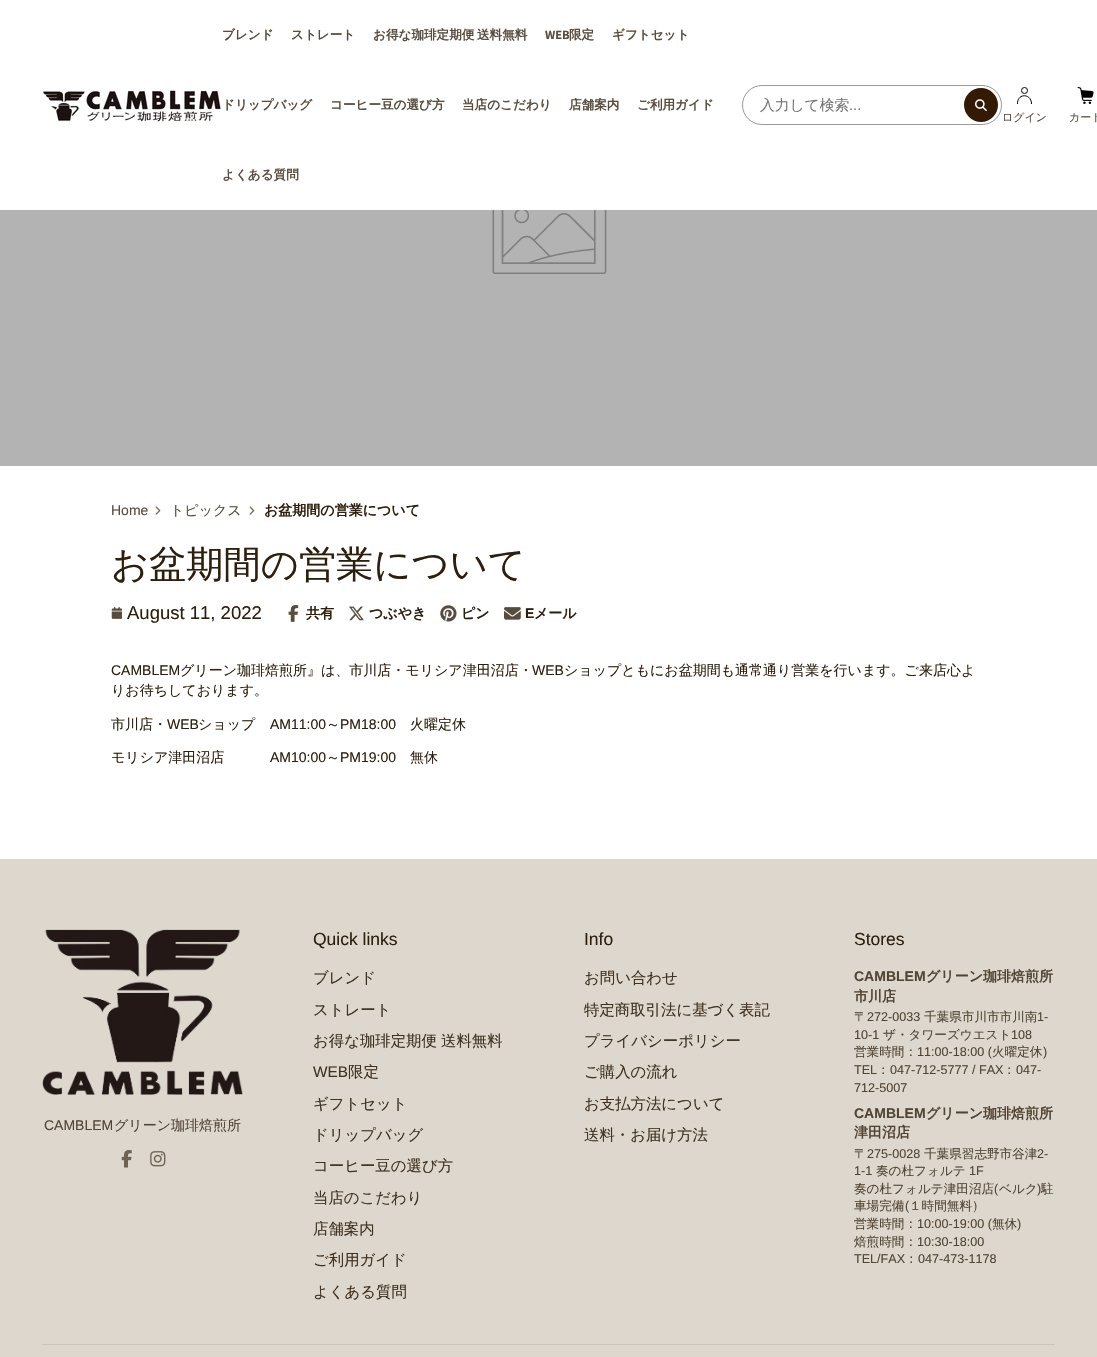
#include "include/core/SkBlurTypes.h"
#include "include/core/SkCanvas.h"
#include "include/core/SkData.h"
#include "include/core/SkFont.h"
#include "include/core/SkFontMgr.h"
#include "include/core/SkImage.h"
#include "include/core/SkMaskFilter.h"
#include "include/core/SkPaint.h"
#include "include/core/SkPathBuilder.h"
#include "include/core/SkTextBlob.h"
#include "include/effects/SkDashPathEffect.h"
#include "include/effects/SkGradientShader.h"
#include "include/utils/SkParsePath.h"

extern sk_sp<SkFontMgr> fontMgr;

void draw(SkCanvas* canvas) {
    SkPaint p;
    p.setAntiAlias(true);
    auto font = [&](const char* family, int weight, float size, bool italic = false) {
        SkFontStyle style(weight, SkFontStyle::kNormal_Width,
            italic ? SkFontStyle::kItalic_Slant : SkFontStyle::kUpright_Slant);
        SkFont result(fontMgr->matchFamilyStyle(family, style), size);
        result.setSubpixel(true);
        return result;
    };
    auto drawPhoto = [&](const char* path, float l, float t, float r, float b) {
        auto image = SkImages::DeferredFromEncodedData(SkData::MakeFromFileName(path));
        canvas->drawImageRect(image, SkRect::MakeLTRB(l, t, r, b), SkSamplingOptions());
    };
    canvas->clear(0xFFFFFFFF);
    drawPhoto("media/1.png", 43, 89, 221, 122);
    auto font1 = font("WenQuanYi Zen Hei", 700, 12.6f);
    p.setColor(0xFF584C3D);
    {
        const struct { const char* s; float x, y; } items[] = {
            {"ブレンド", 222, 39},
            {"ストレート", 291, 39},
            {"お得な珈琲定期便", 373, 39},
            {"送料無料", 477, 39},
        };
        for (auto [s, x, y] : items) {
            canvas->drawString(s, x, y, font1, p);
        }
    }
    auto font2 = font("Assistant", 700, 12.6f);
    canvas->drawString("WEB", 545, 39, font2, p);
    {
        const struct { const char* s; float x, y; } items[] = {
            {"限定", 569, 39},
            {"ギフトセット", 612, 39},
            {"ドリップバッグ", 222, 109},
            {"コーヒー豆の選び方", 330, 109},
            {"当店のこだわり", 462, 109},
            {"店舗案内", 569, 109},
            {"ご利用ガイド", 637, 109},
            {"よくある質問", 222, 179},
        };
        for (auto [s, x, y] : items) {
            canvas->drawString(s, x, y, font1, p);
        }
    }
    p.setStyle(SkPaint::kStroke_Style);
    p.setStrokeWidth(1);
    p.setColor(0xFF999999);
    canvas->drawRoundRect(SkRect::MakeLTRB(742.5f, 85.5f, 1001.5f, 124.5f), 19.5f, 19.5f, p);
    auto font3 = font("WenQuanYi Zen Hei", 500, 14.75f);
    p.setStyle(SkPaint::kFill_Style);
    p.setColor(0xFF757575);
    canvas->drawString("入力して検索", 760, 110, font3, p);
    auto font4 = font("Liberation Sans", 400, 14.75f);
    canvas->drawString("...", 849, 110, font4, p);
    p.setColor(0xFF321A05);
    canvas->drawCircle(981, 105, 17, p);
    drawPhoto("media/2.png", 975, 99, 987, 111);
    p.setStyle(SkPaint::kStroke_Style);
    p.setColor(0xFF000000);
    canvas->drawCircle(1024.5f, 90.5f, 3, p);
    p.setStrokeCap(SkPaint::kSquare_Cap);
    canvas->drawPath(SkPathBuilder().moveTo(1017.5f, 103.5f).cubicTo(1017, 93, 1031.5f, 93, 1031.5f, 103.5f).detach(), p);
    auto font5 = font("WenQuanYi Zen Hei", 500, 11);
    p.setStyle(SkPaint::kFill_Style);
    p.setColor(0xFF584C3D);
    canvas->drawString("ログイン", 1002, 121, font5, p);
    drawPhoto("media/3.png", 1077, 87, 1094, 104);
    canvas->drawString("カート", 1069, 121, font5, p);
    p.setColor(0xFFB3B3B3);
    canvas->drawRect(SkRect::MakeLTRB(0, 210, 1097, 466), p);
    drawPhoto("media/4.png", 492, 210, 607, 274);
    auto font6 = font("Liberation Sans", 400, 14);
    p.setColor(0xFF584C3D);
    canvas->drawString("Home", 111, 515, font6, p);
    drawPhoto("media/5.png", 155, 506, 161, 515);
    auto font7 = font("WenQuanYi Zen Hei", 500, 14);
    canvas->drawString("トピックス", 170, 515, font7, p);
    drawPhoto("media/5.png", 249, 506, 255, 515);
    auto font8 = font("WenQuanYi Zen Hei", 700, 14);
    p.setColor(0xFF2E1F0D);
    canvas->drawString("お盆期間の営業について", 264, 515, font8, p);
    auto font9 = font("WenQuanYi Zen Hei", 500, 37.25f);
    canvas->drawString("お盆期間の営業について", 111, 577, font9, p);
    drawPhoto("media/6.png", 111, 607, 122, 619);
    auto font10 = font("Liberation Sans", 400, 18.5f);
    canvas->drawString("August 11, 2022", 127, 619, font10, p);
    drawPhoto("media/7.png", 288, 605, 299, 622);
    canvas->drawString("共有", 306, 618, font8, p);
    drawPhoto("media/8.png", 349, 606, 364, 621);
    canvas->drawString("つぶやき", 369, 618, font8, p);
    drawPhoto("media/9.png", 440, 605, 457, 622);
    canvas->drawString("ピン", 461, 618, font8, p);
    drawPhoto("media/10.png", 504, 607, 521, 620);
    auto font11 = font("Liberation Sans", 700, 14);
    canvas->drawString("E", 525, 618, font11, p);
    canvas->drawString("メール", 534, 618, font8, p);
    canvas->drawString("CAMBLEM", 111, 675, font6, p);
    canvas->drawString("グリーン珈琲焙煎所』は、市川店・モリシア津田沼店・", 180, 675, font7, p);
    canvas->drawString("WEB", 532, 675, font6, p);
    {
        const struct { const char* s; float x, y; } items[] = {
            {"ショップともにお盆期間も通常通り営業を行います。ご来店心よ", 564, 675},
            {"りお待ちしております。", 111, 695},
            {"市川店・", 111, 729},
        };
        for (auto [s, x, y] : items) {
            canvas->drawString(s, x, y, font7, p);
        }
    }
    canvas->drawString("WEB", 167, 729, font6, p);
    canvas->drawString("ショップ", 198, 729, font7, p);
    canvas->drawString("AM11:00", 270, 729, font6, p);
    canvas->drawString("～", 326, 729, font7, p);
    canvas->drawString("PM18:00", 340, 729, font6, p);
    canvas->drawString("火曜定休", 410, 729, font7, p);
    canvas->drawString("モリシア津田沼店", 111, 762, font7, p);
    canvas->drawString("AM10:00", 270, 762, font6, p);
    canvas->drawString("～", 326, 762, font7, p);
    canvas->drawString("PM19:00", 340, 762, font6, p);
    canvas->drawString("無休", 410, 762, font7, p);
    p.setColor(0xFFDDD7CE);
    canvas->drawRect(SkRect::MakeLTRB(0, 859, 1097, 1357), p);
    drawPhoto("media/11.png", 42, 929, 243, 1095);
    p.setColor(0xFF514434);
    canvas->drawString("CAMBLEM", 44, 1130, font6, p);
    canvas->drawString("グリーン珈琲焙煎所", 114, 1130, font7, p);
    drawPhoto("media/12.png", 121, 1150, 132, 1168);
    drawPhoto("media/13.png", 150, 1151, 166, 1167);
    auto font12 = font("Liberation Sans", 400, 17.5f);
    p.setColor(0xFF2E1F0D);
    canvas->drawString("Quick links", 313, 945, font12, p);
    auto font13 = font("WenQuanYi Zen Hei", 500, 15.4f);
    p.setColor(0xFF403120);
    {
        const struct { const char* s; float x, y; } items[] = {
            {"ブレンド", 313, 983},
            {"ストレート", 313, 1015},
            {"お得な珈琲定期便", 313, 1046},
            {"送料無料", 441, 1046},
        };
        for (auto [s, x, y] : items) {
            canvas->drawString(s, x, y, font13, p);
        }
    }
    auto font14 = font("Liberation Sans", 400, 15.4f);
    canvas->drawString("WEB", 313, 1077, font14, p);
    {
        const struct { const char* s; float x, y; } items[] = {
            {"限定", 348, 1077},
            {"ギフトセット", 313, 1109},
            {"ドリップバッグ", 313, 1140},
            {"コーヒー豆の選び方", 313, 1171},
            {"当店のこだわり", 313, 1203},
            {"店舗案内", 313, 1234},
            {"ご利用ガイド", 313, 1265},
            {"よくある質問", 313, 1297},
        };
        for (auto [s, x, y] : items) {
            canvas->drawString(s, x, y, font13, p);
        }
    }
    p.setColor(0xFF2E1F0D);
    canvas->drawString("Info", 584, 945, font12, p);
    p.setColor(0xFF403120);
    {
        const struct { const char* s; float x, y; } items[] = {
            {"お問い合わせ", 584, 983},
            {"特定商取引法に基づく表記", 584, 1015},
            {"プライバシーポリシー", 584, 1046},
            {"ご購入の流れ", 584, 1077},
            {"お支払方法について", 584, 1109},
            {"送料・お届け方法", 584, 1140},
        };
        for (auto [s, x, y] : items) {
            canvas->drawString(s, x, y, font13, p);
        }
    }
    p.setColor(0xFF2E1F0D);
    canvas->drawString("Stores", 854, 945, font12, p);
    p.setColor(0xFF514434);
    canvas->drawString("CAMBLEM", 854, 981, font11, p);
    canvas->drawString("グリーン珈琲焙煎所", 926, 981, font8, p);
    canvas->drawString("市川店", 854, 1001, font8, p);
    auto font15 = font("WenQuanYi Zen Hei", 500, 12.6f);
    canvas->drawString("〒", 854, 1021, font15, p);
    auto font16 = font("Liberation Sans", 400, 12.6f);
    canvas->drawString("272-0033", 867, 1021, font16, p);
    canvas->drawString("千葉県市川市市川南", 924, 1021, font15, p);
    canvas->drawString("1-", 1037, 1021, font16, p);
    canvas->drawString("10-1", 854, 1039, font16, p);
    canvas->drawString("ザ・タワーズウエスト", 883, 1039, font15, p);
    canvas->drawString("108", 1011, 1039, font16, p);
    canvas->drawString("営業時間：", 854, 1056, font15, p);
    canvas->drawString("11:00-18:00 (", 917, 1056, font16, p);
    canvas->drawString("火曜定休", 992, 1056, font15, p);
    canvas->drawString(")", 1043, 1056, font16, p);
    canvas->drawString("TEL", 854, 1074, font16, p);
    canvas->drawString("：", 877, 1074, font15, p);
    canvas->drawString("047-712-5777 / FAX", 890, 1074, font16, p);
    canvas->drawString("：", 1003, 1074, font15, p);
    canvas->drawString("047-", 1016, 1074, font16, p);
    canvas->drawString("712-5007", 854, 1092, font16, p);
    canvas->drawString("CAMBLEM", 854, 1118, font11, p);
    canvas->drawString("グリーン珈琲焙煎所", 926, 1118, font8, p);
    canvas->drawString("津田沼店", 854, 1137, font8, p);
    canvas->drawString("〒", 854, 1158, font15, p);
    canvas->drawString("275-0028", 867, 1158, font16, p);
    canvas->drawString("千葉県習志野市谷津", 924, 1158, font15, p);
    canvas->drawString("2-", 1037, 1158, font16, p);
    canvas->drawString("1-1", 854, 1175, font16, p);
    canvas->drawString("奏の杜フォルテ", 876, 1175, font15, p);
    canvas->drawString("1F", 969, 1175, font16, p);
    canvas->drawString("奏の杜フォルテ津田沼店", 854, 1193, font15, p);
    canvas->drawString("(", 994, 1193, font16, p);
    canvas->drawString("ベルク", 999, 1193, font15, p);
    canvas->drawString(")", 1037, 1193, font16, p);
    canvas->drawString("駐", 1041, 1193, font15, p);
    canvas->drawString("車場完備", 854, 1210, font15, p);
    canvas->drawString("(", 905, 1210, font16, p);
    canvas->drawString("１時間無料）", 909, 1210, font15, p);
    canvas->drawString("営業時間：", 854, 1228, font15, p);
    canvas->drawString("10:00-19:00 (", 917, 1228, font16, p);
    canvas->drawString("無休", 992, 1228, font15, p);
    canvas->drawString(")", 1017, 1228, font16, p);
    canvas->drawString("焙煎時間：", 854, 1246, font15, p);
    canvas->drawString("10:30-18:00", 917, 1246, font16, p);
    canvas->drawString("TEL/FAX", 854, 1263, font16, p);
    canvas->drawString("：", 905, 1263, font15, p);
    canvas->drawString("047-473-1178", 918, 1263, font16, p);
    p.setColor(0xFFCCC5BB);
    canvas->drawRect(SkRect::MakeLTRB(42, 1344, 1055, 1345), p);
}
